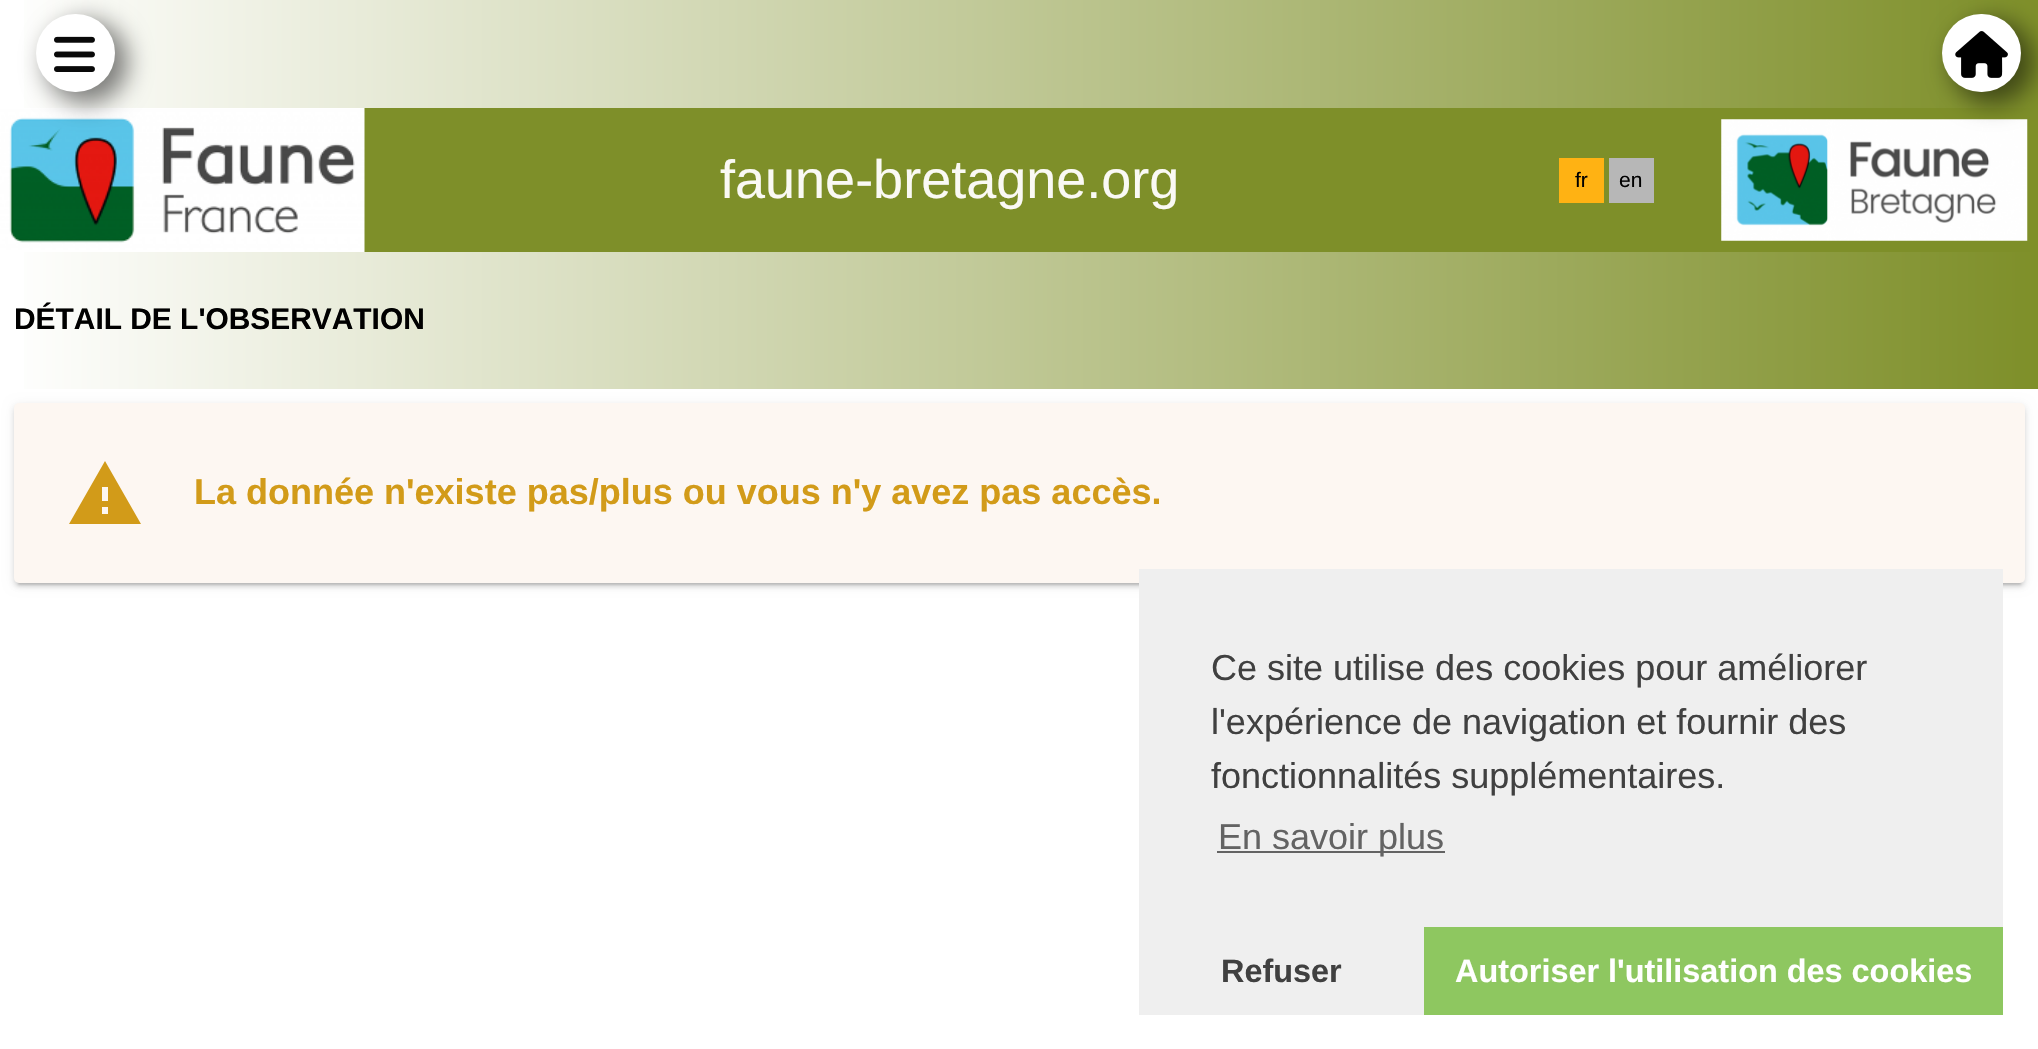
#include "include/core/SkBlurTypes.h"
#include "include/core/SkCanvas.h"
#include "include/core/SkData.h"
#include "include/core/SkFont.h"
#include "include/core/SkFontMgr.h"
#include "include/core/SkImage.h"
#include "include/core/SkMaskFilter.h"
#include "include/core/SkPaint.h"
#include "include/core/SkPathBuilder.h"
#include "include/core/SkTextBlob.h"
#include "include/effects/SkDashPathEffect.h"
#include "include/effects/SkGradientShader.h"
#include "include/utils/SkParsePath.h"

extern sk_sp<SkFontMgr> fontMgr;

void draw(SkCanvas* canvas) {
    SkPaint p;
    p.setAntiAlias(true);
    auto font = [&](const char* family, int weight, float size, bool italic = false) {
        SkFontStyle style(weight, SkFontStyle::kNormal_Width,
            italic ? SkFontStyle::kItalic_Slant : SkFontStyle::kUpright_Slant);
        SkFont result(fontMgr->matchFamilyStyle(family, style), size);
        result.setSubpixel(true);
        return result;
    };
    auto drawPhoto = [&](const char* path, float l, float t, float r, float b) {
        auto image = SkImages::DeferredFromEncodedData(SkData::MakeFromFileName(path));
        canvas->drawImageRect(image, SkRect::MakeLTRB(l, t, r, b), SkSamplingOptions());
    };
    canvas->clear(0xFFFFFFFF);
    {
        const SkColor colors[] = {0xFFFFFFFF, 0xFF7E8F29};
        const float stops[] = {0, 1};
        const SkPoint ends[] = {{0, 54}, {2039, 54}};
        p.setShader(SkGradientShader::MakeLinear(ends, colors, stops, 2, SkTileMode::kClamp));
        p.setAlpha(255);
    }
    canvas->drawRect(SkRect::MakeLTRB(24, 0, 2038, 108), p);
    p.setShader(nullptr);
    p.setColor(0xFF7E8F29);
    canvas->drawRect(SkRect::MakeLTRB(364, 108, 2038, 252), p);
    drawPhoto("media/3.png", 0, 108, 365, 252);
    p.setColor(0x80000000);
    p.setMaskFilter(SkMaskFilter::MakeBlur(kNormal_SkBlurStyle, 12.5f));
    canvas->drawRoundRect(SkRect::MakeLTRB(45, 20, 128, 104), 41.5f, 41.5f, p);
    p.setMaskFilter(nullptr);
    p.setColor(0xFFFFFFFF);
    canvas->drawRoundRect(SkRect::MakeLTRB(36, 14, 115, 92), 39, 39, p);
    drawPhoto("media/1.png", 54, 36, 95, 72);
    drawPhoto("media/4.png", 1721, 119, 2028, 241);
    p.setColor(0x80000000);
    p.setMaskFilter(SkMaskFilter::MakeBlur(kNormal_SkBlurStyle, 12.5f));
    canvas->drawRoundRect(SkRect::MakeLTRB(1951, 20, 2034, 104), 41.5f, 41.5f, p);
    p.setMaskFilter(nullptr);
    p.setColor(0xFFFFFFFF);
    canvas->drawRoundRect(SkRect::MakeLTRB(1942, 14, 2021, 92), 39, 39, p);
    drawPhoto("media/2.png", 1955, 31, 2008, 78);
    auto font1 = font("Liberation Sans", 400, 54);
    p.setColor(0xFFFAF9F4);
    canvas->drawString("faune-bretagne.org", 720, 198, font1, p);
    p.setColor(0xFFFFB213);
    canvas->drawRect(SkRect::MakeLTRB(1559, 158, 1604, 203), p);
    auto font2 = font("Liberation Sans", 400, 21);
    p.setColor(0xFF000000);
    canvas->drawString("fr", 1575, 187, font2, p);
    p.setColor(0xFFB7B7B7);
    canvas->drawRect(SkRect::MakeLTRB(1609, 158, 1654, 203), p);
    p.setColor(0xFF000000);
    canvas->drawString("en", 1619, 187, font2, p);
    p.setColor(0x14000000);
    p.setMaskFilter(SkMaskFilter::MakeBlur(kNormal_SkBlurStyle, 5.5f));
    canvas->drawRoundRect(SkRect::MakeLTRB(14, 405, 2025, 585), 5, 5, p);
    p.setMaskFilter(nullptr);
    {
        const SkColor colors[] = {0xFFFFFFFF, 0xFF7E8F29};
        const float stops[] = {0, 1};
        const SkPoint ends[] = {{0, 321}, {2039, 321}};
        p.setShader(SkGradientShader::MakeLinear(ends, colors, stops, 2, SkTileMode::kClamp));
        p.setAlpha(255);
    }
    canvas->drawRect(SkRect::MakeLTRB(24, 252, 2038, 389), p);
    auto font3 = font("Liberation Sans", 700, 29.9f);
    p.setShader(nullptr);
    p.setColor(0xFF000000);
    canvas->drawString("DÉTAIL DE L'OBSERVATION", 14, 329, font3, p);
    p.setColor(0x1A000000);
    p.setMaskFilter(SkMaskFilter::MakeBlur(kNormal_SkBlurStyle, 2));
    canvas->drawRoundRect(SkRect::MakeLTRB(14, 407, 2025, 587), 5, 5, p);
    p.setMaskFilter(nullptr);
    p.setColor(0x24000000);
    p.setMaskFilter(SkMaskFilter::MakeBlur(kNormal_SkBlurStyle, 1));
    canvas->drawRect(SkRect::MakeLTRB(18, 414, 2021, 585), p);
    p.setMaskFilter(nullptr);
    p.setColor(0xFFFDF7F2);
    canvas->drawRoundRect(SkRect::MakeLTRB(14, 403, 2025, 583), 5, 5, p);
    p.setColor(0xFFD29B19);
    canvas->drawPath(SkPathBuilder().moveTo(69, 524).lineTo(141, 524).lineTo(105, 461).close().moveTo(108, 514).lineTo(102, 514).lineTo(102, 507).lineTo(108, 507).close().moveTo(108, 501).lineTo(102, 501).lineTo(102, 487).lineTo(108, 487).close().detach(), p);
    auto font4 = font("Liberation Sans", 700, 36);
    canvas->drawString("La donnée n'existe pas/plus ou vous n'y avez pas accès.", 194, 504, font4, p);
    p.setColor(0xFFEFEFEF);
    canvas->drawRect(SkRect::MakeLTRB(1139, 569, 2003, 1015), p);
    auto font5 = font("Liberation Sans", 400, 36);
    p.setColor(0xFF404040);
    {
        const struct { const char* s; float x, y; } items[] = {
            {"Ce site utilise des cookies pour améliorer", 1211, 680},
            {"l'expérience de navigation et fournir des", 1211, 734},
            {"fonctionnalités supplémentaires.", 1211, 788},
        };
        for (auto [s, x, y] : items) {
            canvas->drawString(s, x, y, font5, p);
        }
    }
    p.setColor(0xFF636363);
    canvas->drawRect(SkRect::MakeLTRB(1217, 851, 1445, 853), p);
    canvas->drawString("En savoir plus", 1218, 849, font5, p);
    auto font6 = font("Liberation Sans", 700, 32.4f);
    p.setColor(0xFF404040);
    canvas->drawString("Refuser", 1221, 982, font6, p);
    p.setColor(0xFF8EC760);
    canvas->drawRect(SkRect::MakeLTRB(1424, 927, 2003, 1015), p);
    p.setColor(0xFFFFFFFF);
    canvas->drawString("Autoriser l'utilisation des cookies", 1455, 982, font6, p);
}
